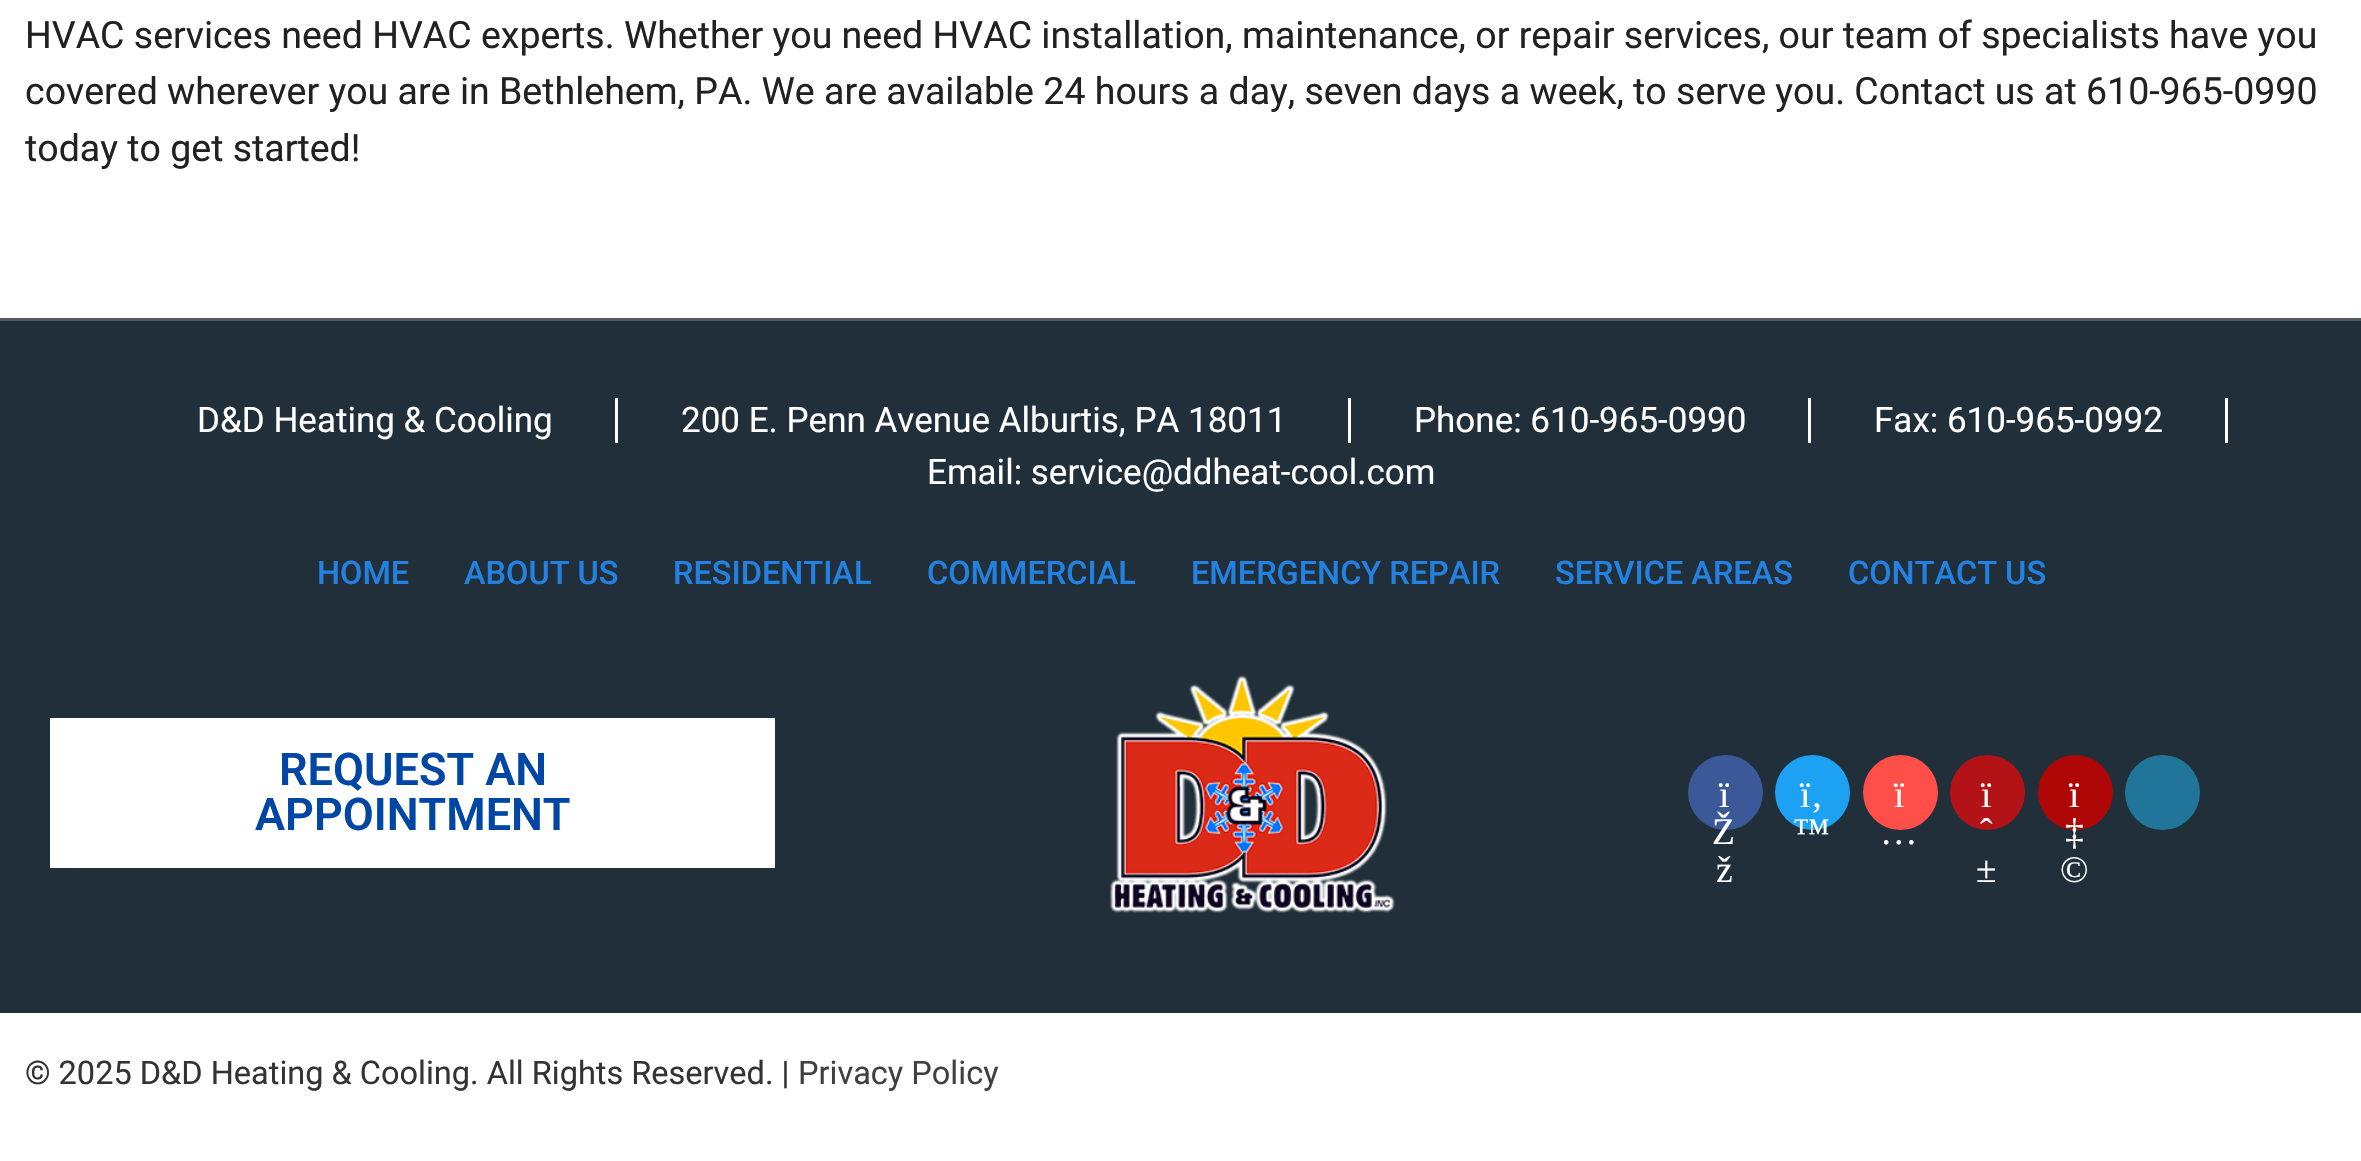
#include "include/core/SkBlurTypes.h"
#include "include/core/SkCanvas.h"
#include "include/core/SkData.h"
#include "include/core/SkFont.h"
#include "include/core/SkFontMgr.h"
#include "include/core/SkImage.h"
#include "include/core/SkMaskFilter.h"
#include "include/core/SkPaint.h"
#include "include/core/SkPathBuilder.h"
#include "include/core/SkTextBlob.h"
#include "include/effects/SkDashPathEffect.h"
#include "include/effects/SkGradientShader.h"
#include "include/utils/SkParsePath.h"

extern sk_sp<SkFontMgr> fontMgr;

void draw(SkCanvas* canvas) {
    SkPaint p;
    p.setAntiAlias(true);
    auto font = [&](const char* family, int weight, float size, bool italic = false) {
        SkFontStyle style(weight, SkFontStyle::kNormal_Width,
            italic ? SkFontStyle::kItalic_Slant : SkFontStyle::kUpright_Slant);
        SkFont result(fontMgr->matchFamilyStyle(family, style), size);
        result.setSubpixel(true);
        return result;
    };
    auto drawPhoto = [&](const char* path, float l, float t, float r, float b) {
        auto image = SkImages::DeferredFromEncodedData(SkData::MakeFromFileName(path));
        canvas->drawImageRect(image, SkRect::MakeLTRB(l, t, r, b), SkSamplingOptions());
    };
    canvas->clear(0xFFFFFFFF);
    auto font1 = font("Roboto", 400, 37.5f);
    p.setColor(0xFF212121);
    {
        const struct { const char* s; float x, y; } items[] = {
            {"HVAC services need HVAC experts. Whether you need HVAC installation, maintenance, or repair services, our team of specialists have you", 25, 48},
            {"covered wherever you are in Bethlehem, PA. We are available 24 hours a day, seven days a week, to serve you. Contact us at 610-965-0990", 25, 104},
            {"today to get started!", 25, 161},
        };
        for (auto [s, x, y] : items) {
            canvas->drawString(s, x, y, font1, p);
        }
    }
    p.setColor(0xFF202F39);
    canvas->drawRect(SkRect::MakeLTRB(0, 321, 2361, 1013), p);
    p.setColor(0xFF54595F);
    canvas->drawRect(SkRect::MakeLTRB(0, 318, 2361, 321), p);
    auto font2 = font("Roboto", 400, 35);
    p.setColor(0xFFFFFFFF);
    canvas->drawString("D&D Heating & Cooling", 197, 432, font2, p);
    canvas->drawRect(SkRect::MakeLTRB(615, 398, 618, 443), p);
    canvas->drawString("200 E. Penn Avenue Alburtis, PA 18011", 681, 432, font2, p);
    canvas->drawRect(SkRect::MakeLTRB(1348, 398, 1351, 443), p);
    canvas->drawString("Phone: 610-965-0990", 1414, 432, font2, p);
    canvas->drawRect(SkRect::MakeLTRB(1808, 398, 1811, 443), p);
    canvas->drawString("Fax: 610-965-0992", 1874, 432, font2, p);
    canvas->drawRect(SkRect::MakeLTRB(2225, 398, 2228, 443), p);
    canvas->drawString("Email: service@ddheat-cool.com", 927, 484, font2, p);
    auto font3 = font("Roboto", 500, 32.5f);
    p.setColor(0xFF2381E2);
    {
        const struct { const char* s; float x, y; } items[] = {
            {"HOME", 317, 584},
            {"ABOUT US", 464, 584},
            {"RESIDENTIAL", 673, 584},
            {"COMMERCIAL", 927, 584},
            {"EMERGENCY REPAIR", 1191, 584},
            {"SERVICE AREAS", 1555, 584},
            {"CONTACT US", 1848, 584},
        };
        for (auto [s, x, y] : items) {
            canvas->drawString(s, x, y, font3, p);
        }
    }
    p.setColor(0xFFFFFFFF);
    canvas->drawRect(SkRect::MakeLTRB(50, 718, 775, 868), p);
    auto font4 = font("Roboto", 600, 45);
    p.setColor(0xFF0046A5);
    canvas->drawString("REQUEST AN", 279, 785, font4, p);
    canvas->drawString("APPOINTMENT", 255, 830, font4, p);
    drawPhoto("media/1.png", 1110, 675, 1395, 913);
    p.setColor(0xFF3B5998);
    canvas->drawCircle(1725.5f, 792.5f, 37.5f, p);
    auto font5 = font("Liberation Serif", 400, 37.5f);
    p.setColor(0xFFFFFFFF);
    {
        const struct { const char* s; float x, y; } items[] = {
            {"ï", 1719, 807},
            {"Ž", 1712, 844},
            {"ž", 1716, 882},
        };
        for (auto [s, x, y] : items) {
            canvas->drawString(s, x, y, font5, p);
        }
    }
    p.setColor(0xFF1DA1F2);
    canvas->drawCircle(1812.5f, 792.5f, 37.5f, p);
    p.setColor(0xFFFFFFFF);
    canvas->drawString("ï‚", 1800, 807, font5, p);
    canvas->drawString("™", 1793, 844, font5, p);
    p.setColor(0xFFFF4F48);
    canvas->drawCircle(1900.5f, 792.5f, 37.5f, p);
    p.setColor(0xFFFFFFFF);
    canvas->drawString("ï", 1894, 807, font5, p);
    canvas->drawString("…", 1880, 844, font5, p);
    p.setColor(0xFFB31217);
    canvas->drawCircle(1987.5f, 792.5f, 37.5f, p);
    p.setColor(0xFFFFFFFF);
    {
        const struct { const char* s; float x, y; } items[] = {
            {"ï", 1981, 807},
            {"ˆ", 1980, 844},
            {"±", 1976, 882},
        };
        for (auto [s, x, y] : items) {
            canvas->drawString(s, x, y, font5, p);
        }
    }
    p.setColor(0xFFAF0606);
    canvas->drawCircle(2075.5f, 792.5f, 37.5f, p);
    p.setColor(0xFFFFFFFF);
    {
        const struct { const char* s; float x, y; } items[] = {
            {"ï", 2069, 807},
            {"‡", 2065, 844},
            {"©", 2060, 882},
        };
        for (auto [s, x, y] : items) {
            canvas->drawString(s, x, y, font5, p);
        }
    }
    p.setColor(0xFF21759B);
    canvas->drawCircle(2162.5f, 792.5f, 37.5f, p);
    auto font6 = font("Roboto", 400, 32.5f);
    p.setColor(0xFF333333);
    canvas->drawString("© 2025 D&D Heating & Cooling. All Rights Reserved. |", 25, 1084, font6, p);
    p.setColor(0xFF404040);
    canvas->drawString("Privacy Policy", 798, 1084, font6, p);
}
